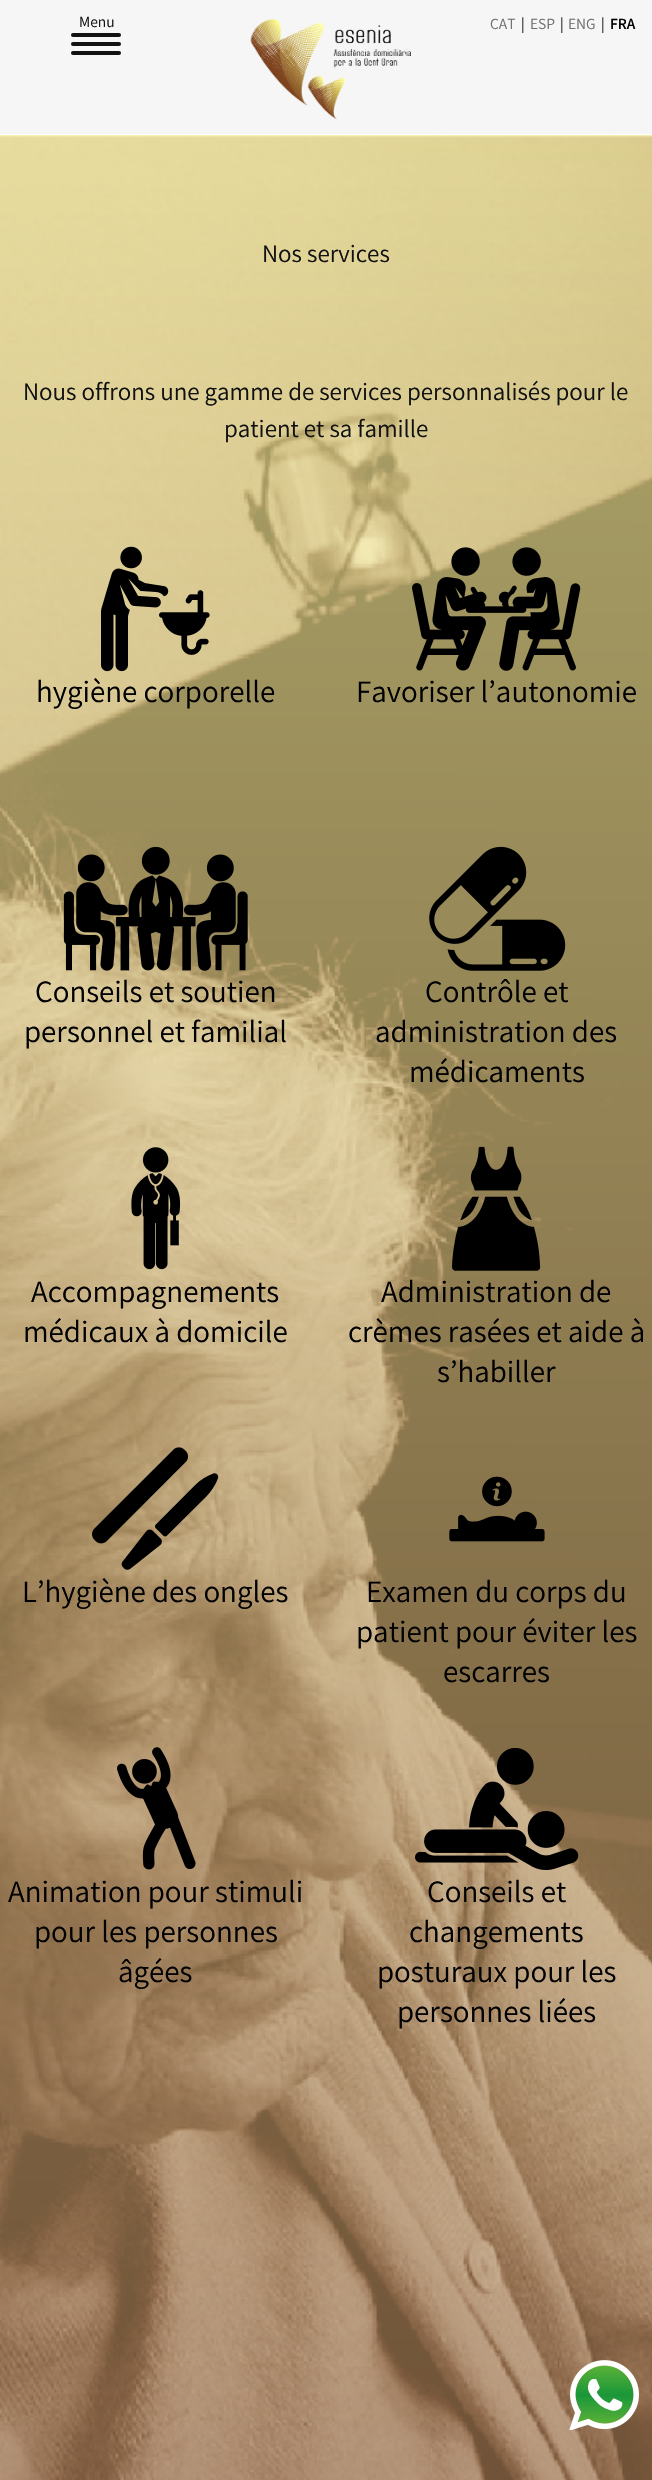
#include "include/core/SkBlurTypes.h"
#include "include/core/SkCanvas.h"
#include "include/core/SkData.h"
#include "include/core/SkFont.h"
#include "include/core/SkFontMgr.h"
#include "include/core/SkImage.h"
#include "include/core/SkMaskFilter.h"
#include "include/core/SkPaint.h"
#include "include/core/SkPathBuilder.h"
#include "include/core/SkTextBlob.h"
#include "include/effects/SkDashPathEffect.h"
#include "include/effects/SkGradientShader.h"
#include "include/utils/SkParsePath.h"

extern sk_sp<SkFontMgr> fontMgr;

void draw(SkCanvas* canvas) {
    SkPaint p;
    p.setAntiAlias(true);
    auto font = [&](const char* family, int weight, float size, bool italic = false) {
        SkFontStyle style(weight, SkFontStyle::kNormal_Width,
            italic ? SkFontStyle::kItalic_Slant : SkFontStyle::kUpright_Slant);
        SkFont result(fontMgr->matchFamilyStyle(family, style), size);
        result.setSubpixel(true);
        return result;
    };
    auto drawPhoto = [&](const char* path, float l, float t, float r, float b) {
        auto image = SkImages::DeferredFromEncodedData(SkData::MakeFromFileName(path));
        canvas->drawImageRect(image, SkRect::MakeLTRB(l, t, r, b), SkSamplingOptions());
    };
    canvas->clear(0xFFFFFFFF);
    p.setColor(0xFFF6F6F6);
    canvas->drawRect(SkRect::MakeLTRB(0, 0, 652, 134), p);
    auto font1 = font("Assistant", 400, 15.5f);
    p.setColor(0xFF111111);
    canvas->drawString("Menu", 79, 27, font1, p);
    canvas->drawRoundRect(SkRect::MakeLTRB(71, 33, 121, 37), 2, 2, p);
    canvas->drawRoundRect(SkRect::MakeLTRB(71, 42, 121, 46), 2, 2, p);
    canvas->drawRoundRect(SkRect::MakeLTRB(71, 51, 121, 55), 2, 2, p);
    drawPhoto("media/1.png", 250, 19, 411, 119);
    p.setColor(0xFF6F6F74);
    canvas->drawString("CAT", 490, 29, font1, p);
    p.setColor(0xFF111111);
    canvas->drawString("|", 521, 29, font1, p);
    p.setColor(0xFF6F6F74);
    canvas->drawString("ESP", 530, 29, font1, p);
    p.setColor(0xFF111111);
    canvas->drawString("|", 560, 29, font1, p);
    p.setColor(0xFF6F6F74);
    canvas->drawString("ENG", 568, 29, font1, p);
    p.setColor(0xFF111111);
    canvas->drawString("|", 601, 29, font1, p);
    auto font2 = font("Assistant", 600, 15.5f);
    p.setColor(0xFF000000);
    canvas->drawString("FRA", 610, 29, font2, p);
    drawPhoto("media/2.png", 0, 135, 652, 2480);
    auto font3 = font("Assistant", 400, 25);
    p.setColor(0xFF111111);
    {
        const struct { const char* s; float x, y; } items[] = {
            {"Nos services", 262, 262},
            {"Nous offrons une gamme de services personnalisés pour le", 23, 400},
            {"patient et sa famille", 224, 437},
        };
        for (auto [s, x, y] : items) {
            canvas->drawString(s, x, y, font3, p);
        }
    }
    drawPhoto("media/3.png", 101, 546, 210, 672);
    auto font4 = font("Assistant", 400, 31);
    p.setColor(0xFF000000);
    canvas->drawString("hygiène corporelle", 36, 702, font4, p);
    drawPhoto("media/4.png", 412, 547, 581, 671);
    canvas->drawString("Favoriser l’autonomie", 356, 702, font4, p);
    drawPhoto("media/5.png", 63, 846, 248, 971);
    canvas->drawString("Conseils et soutien", 35, 1002, font4, p);
    canvas->drawString("personnel et familial", 24, 1042, font4, p);
    drawPhoto("media/6.png", 429, 846, 566, 971);
    {
        const struct { const char* s; float x, y; } items[] = {
            {"Contrôle et", 425, 1002},
            {"administration des", 375, 1042},
            {"médicaments", 409, 1082},
        };
        for (auto [s, x, y] : items) {
            canvas->drawString(s, x, y, font4, p);
        }
    }
    drawPhoto("media/7.png", 131, 1147, 181, 1270);
    canvas->drawString("Accompagnements", 31, 1302, font4, p);
    canvas->drawString("médicaux à domicile", 23, 1342, font4, p);
    drawPhoto("media/8.png", 452, 1146, 541, 1271);
    {
        const struct { const char* s; float x, y; } items[] = {
            {"Administration de", 381, 1302},
            {"crèmes rasées et aide à", 348, 1342},
            {"s’habiller", 437, 1382},
        };
        for (auto [s, x, y] : items) {
            canvas->drawString(s, x, y, font4, p);
        }
    }
    drawPhoto("media/9.png", 92, 1447, 219, 1570);
    canvas->drawString("L’hygiène des ongles", 22, 1602, font4, p);
    drawPhoto("media/10.png", 449, 1476, 545, 1542);
    {
        const struct { const char* s; float x, y; } items[] = {
            {"Examen du corps du", 366, 1602},
            {"patient pour éviter les", 356, 1642},
            {"escarres", 443, 1682},
        };
        for (auto [s, x, y] : items) {
            canvas->drawString(s, x, y, font4, p);
        }
    }
    drawPhoto("media/11.png", 116, 1747, 196, 1870);
    {
        const struct { const char* s; float x, y; } items[] = {
            {"Animation pour stimuli", 8, 1902},
            {"pour les personnes", 34, 1942},
            {"âgées", 118, 1982},
        };
        for (auto [s, x, y] : items) {
            canvas->drawString(s, x, y, font4, p);
        }
    }
    drawPhoto("media/12.png", 415, 1748, 579, 1870);
    {
        const struct { const char* s; float x, y; } items[] = {
            {"Conseils et", 427, 1902},
            {"changements", 409, 1942},
            {"posturaux pour les", 377, 1982},
            {"personnes liées", 397, 2022},
        };
        for (auto [s, x, y] : items) {
            canvas->drawString(s, x, y, font4, p);
        }
    }
    drawPhoto("media/13.png", 569, 2360, 639, 2430);
}
